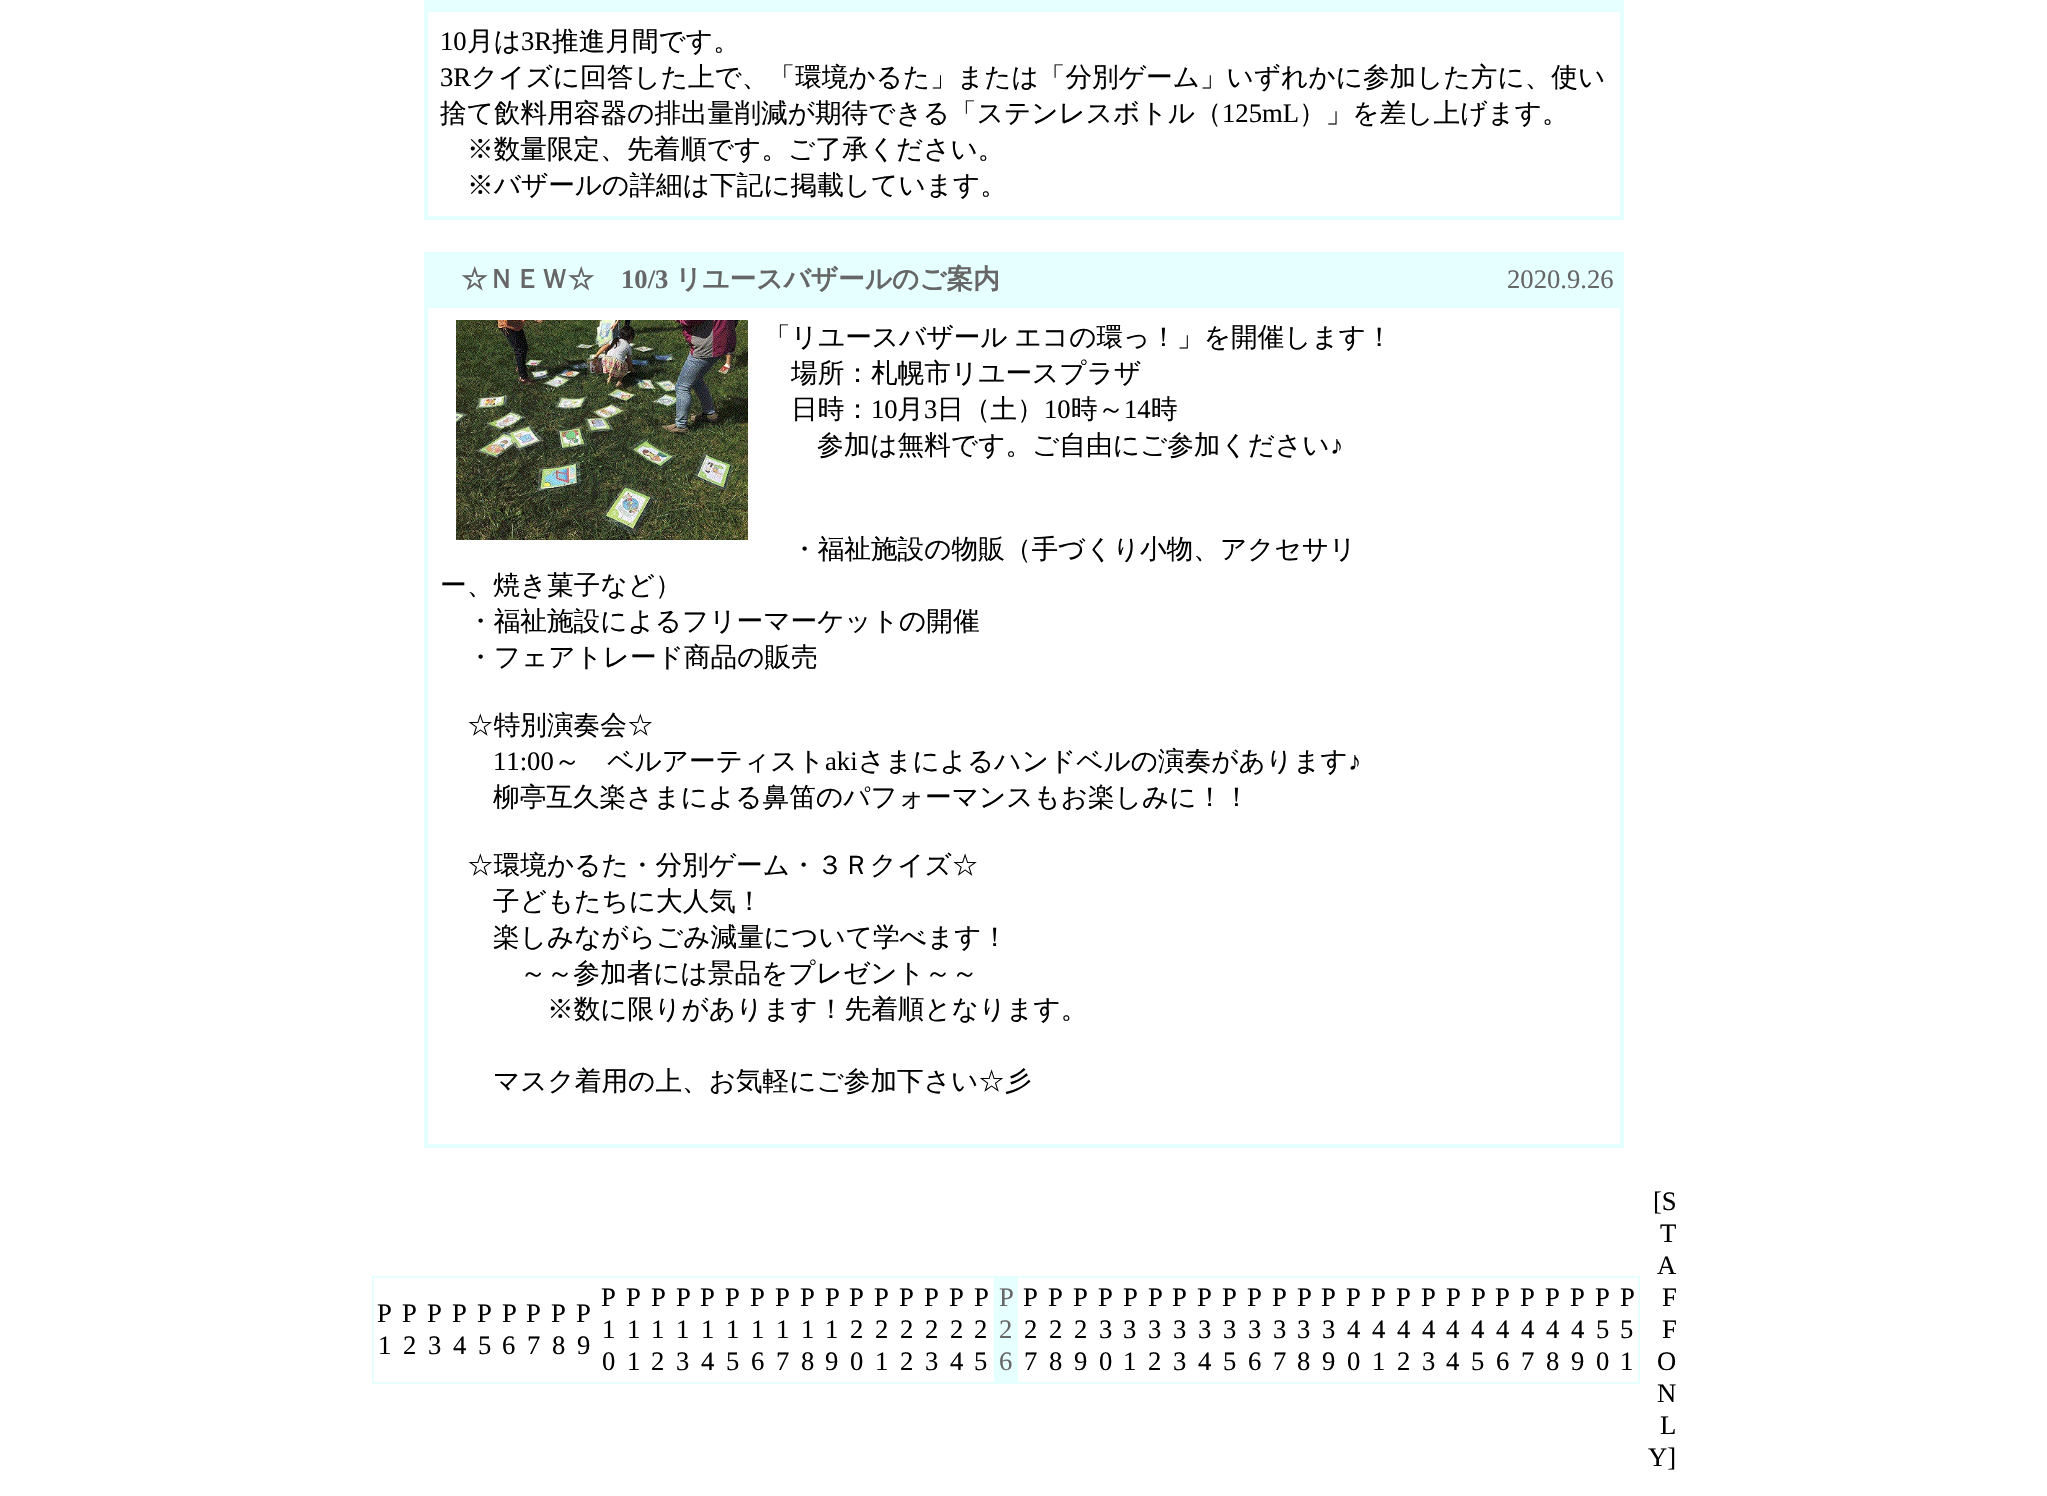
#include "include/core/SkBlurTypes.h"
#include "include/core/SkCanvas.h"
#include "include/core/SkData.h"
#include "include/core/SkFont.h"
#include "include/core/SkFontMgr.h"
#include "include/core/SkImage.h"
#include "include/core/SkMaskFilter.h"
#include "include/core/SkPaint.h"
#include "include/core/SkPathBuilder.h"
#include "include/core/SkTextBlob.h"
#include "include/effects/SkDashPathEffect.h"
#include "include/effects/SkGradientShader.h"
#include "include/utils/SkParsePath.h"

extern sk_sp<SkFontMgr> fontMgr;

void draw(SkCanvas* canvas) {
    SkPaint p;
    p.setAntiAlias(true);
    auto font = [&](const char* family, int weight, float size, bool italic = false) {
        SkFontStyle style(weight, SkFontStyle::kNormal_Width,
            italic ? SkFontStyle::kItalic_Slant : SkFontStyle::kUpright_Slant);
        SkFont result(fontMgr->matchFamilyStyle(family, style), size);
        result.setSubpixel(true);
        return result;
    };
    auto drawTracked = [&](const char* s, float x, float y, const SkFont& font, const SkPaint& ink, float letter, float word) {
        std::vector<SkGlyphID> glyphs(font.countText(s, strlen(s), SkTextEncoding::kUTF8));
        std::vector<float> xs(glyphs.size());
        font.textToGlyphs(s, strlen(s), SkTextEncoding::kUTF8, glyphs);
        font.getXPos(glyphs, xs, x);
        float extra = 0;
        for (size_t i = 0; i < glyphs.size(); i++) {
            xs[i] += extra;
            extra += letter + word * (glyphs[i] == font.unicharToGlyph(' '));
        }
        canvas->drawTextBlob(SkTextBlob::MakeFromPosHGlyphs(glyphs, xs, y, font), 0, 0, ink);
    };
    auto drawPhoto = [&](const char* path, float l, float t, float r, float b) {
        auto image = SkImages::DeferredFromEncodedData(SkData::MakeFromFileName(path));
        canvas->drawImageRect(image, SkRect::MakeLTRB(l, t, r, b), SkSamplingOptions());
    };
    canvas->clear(0xFFFFFFFF);
    p.setColor(0xFFE6FFFF);
    canvas->drawRect(SkRect::MakeLTRB(424, 0, 1624, 220), p);
    p.setColor(0xFFFFFFFF);
    canvas->drawRect(SkRect::MakeLTRB(428, 12, 1620, 216), p);
    auto font1 = font("Liberation Serif", 400, 26.65f);
    p.setColor(0xFF000000);
    canvas->drawString("10", 440, 50, font1, p);
    auto font2 = font("WenQuanYi Zen Hei", 500, 26.65f);
    canvas->drawString("月は", 467, 50, font2, p);
    canvas->drawString("3R", 521, 50, font1, p);
    canvas->drawString("推進月間です。", 552, 50, font2, p);
    canvas->drawString("3R", 440, 86, font1, p);
    canvas->drawString("クイズに回答した上で、「環境かるた」または「分別ゲーム」いずれかに参加した方に、使い", 471, 86, font2, p);
    canvas->drawString("捨て飲料用容器の排出量削減が期待できる「ステンレスボトル（", 440, 122, font2, p);
    canvas->drawString("125mL", 1222, 122, font1, p);
    {
        const struct { const char* s; float x, y; } items[] = {
            {"）」を差し上げます。", 1299, 122},
            {"※数量限定、先着順です。ご了承ください。", 467, 158},
            {"※バザールの詳細は下記に掲載しています。", 467, 194},
        };
        for (auto [s, x, y] : items) {
            canvas->drawString(s, x, y, font2, p);
        }
    }
    p.setColor(0xFFE6FFFF);
    canvas->drawRect(SkRect::MakeLTRB(424, 252, 1624, 1148), p);
    auto font3 = font("WenQuanYi Zen Hei", 700, 26.65f);
    p.setColor(0xFF666666);
    canvas->drawString("☆ＮＥＷ☆", 461, 288, font3, p);
    auto font4 = font("Liberation Serif", 700, 26.65f);
    canvas->drawString("10/3", 621, 288, font4, p);
    canvas->drawString("リユースバザールのご案内", 675, 288, font3, p);
    canvas->drawString("2020.9.26", 1507, 288, font1, p);
    p.setColor(0xFFFFFFFF);
    canvas->drawRect(SkRect::MakeLTRB(428, 308, 1620, 1144), p);
    drawPhoto("media/1.png", 456, 320, 748, 540);
    p.setColor(0xFF000000);
    drawTracked("「リユースバザール エコの環っ！」を開催します！", 764, 346, font2, p, 0, -1);
    canvas->drawString("場所：札幌市リユースプラザ", 791, 382, font2, p);
    canvas->drawString("日時：", 791, 418, font2, p);
    canvas->drawString("10", 871, 418, font1, p);
    canvas->drawString("月", 897, 418, font2, p);
    canvas->drawString("3", 924, 418, font1, p);
    canvas->drawString("日（土）", 937, 418, font2, p);
    canvas->drawString("10", 1044, 418, font1, p);
    canvas->drawString("時～", 1071, 418, font2, p);
    canvas->drawString("14", 1124, 418, font1, p);
    canvas->drawString("時", 1151, 418, font2, p);
    canvas->drawString("参加は無料です。ご自由にご参加ください", 817, 454, font2, p);
    canvas->drawString("♪", 1330, 454, font1, p);
    {
        const struct { const char* s; float x, y; } items[] = {
            {"・福祉施設の物販（手づくり小物、アクセサリ", 791, 558},
            {"ー、焼き菓子など）", 440, 594},
            {"・福祉施設によるフリーマーケットの開催", 467, 630},
            {"・フェアトレード商品の販売", 467, 666},
            {"☆特別演奏会☆", 467, 734},
        };
        for (auto [s, x, y] : items) {
            canvas->drawString(s, x, y, font2, p);
        }
    }
    canvas->drawString("11:00", 493, 770, font1, p);
    canvas->drawString("～　ベルアーティスト", 554, 770, font2, p);
    canvas->drawString("aki", 825, 770, font1, p);
    canvas->drawString("さまによるハンドベルの演奏があります", 858, 770, font2, p);
    canvas->drawString("♪", 1348, 770, font1, p);
    {
        const struct { const char* s; float x, y; } items[] = {
            {"柳亭互久楽さまによる鼻笛のパフォーマンスもお楽しみに！！", 493, 806},
            {"☆環境かるた・分別ゲーム・３Ｒクイズ☆", 467, 874},
            {"子どもたちに大人気！", 493, 910},
            {"楽しみながらごみ減量について学べます！", 493, 946},
            {"～～参加者には景品をプレゼント～～", 520, 982},
            {"※数に限りがあります！先着順となります。", 547, 1018},
            {"マスク着用の上、お気軽にご参加下さい☆彡", 493, 1090},
        };
        for (auto [s, x, y] : items) {
            canvas->drawString(s, x, y, font2, p);
        }
    }
    p.setColor(0xFFE6FFFF);
    canvas->drawRect(SkRect::MakeLTRB(372, 1276, 1640, 1384), p);
    p.setColor(0xFFFFFFFF);
    canvas->drawRect(SkRect::MakeLTRB(374, 1278, 1638, 1382), p);
    p.setColor(0xFF000000);
    {
        const struct { const char* s; float x, y; } items[] = {
            {"P", 377, 1322},
            {"1", 378, 1354},
            {"P", 402, 1322},
            {"2", 403, 1354},
            {"P", 427, 1322},
            {"3", 428, 1354},
            {"P", 452, 1322},
            {"4", 453, 1354},
            {"P", 477, 1322},
            {"5", 478, 1354},
            {"P", 502, 1322},
            {"6", 502, 1354},
            {"P", 526, 1322},
            {"7", 527, 1354},
            {"P", 551, 1322},
            {"8", 552, 1354},
            {"P", 576, 1322},
            {"9", 577, 1354},
            {"P", 601, 1306},
            {"1", 602, 1338},
            {"0", 602, 1370},
            {"P", 626, 1306},
            {"1", 627, 1338},
            {"1", 627, 1370},
            {"P", 651, 1306},
            {"1", 651, 1338},
            {"2", 651, 1370},
            {"P", 676, 1306},
            {"1", 676, 1338},
            {"3", 676, 1370},
            {"P", 700, 1306},
            {"1", 701, 1338},
            {"4", 701, 1370},
            {"P", 725, 1306},
            {"1", 726, 1338},
            {"5", 726, 1370},
            {"P", 750, 1306},
            {"1", 751, 1338},
            {"6", 751, 1370},
            {"P", 775, 1306},
            {"1", 776, 1338},
            {"7", 776, 1370},
            {"P", 800, 1306},
            {"1", 801, 1338},
            {"8", 801, 1370},
            {"P", 825, 1306},
            {"1", 825, 1338},
            {"9", 825, 1370},
            {"P", 849, 1306},
            {"2", 850, 1338},
            {"0", 850, 1370},
            {"P", 874, 1306},
            {"2", 875, 1338},
            {"1", 875, 1370},
            {"P", 899, 1306},
            {"2", 900, 1338},
            {"2", 900, 1370},
            {"P", 924, 1306},
            {"2", 925, 1338},
            {"3", 925, 1370},
            {"P", 949, 1306},
            {"2", 950, 1338},
            {"4", 950, 1370},
            {"P", 974, 1306},
            {"2", 974, 1338},
            {"5", 974, 1370},
        };
        for (auto [s, x, y] : items) {
            canvas->drawString(s, x, y, font1, p);
        }
    }
    p.setColor(0xFFE6FFFF);
    canvas->drawRect(SkRect::MakeLTRB(994, 1278, 1018, 1382), p);
    p.setColor(0xFF666666);
    {
        const struct { const char* s; float x, y; } items[] = {
            {"P", 999, 1306},
            {"2", 999, 1338},
            {"6", 999, 1370},
        };
        for (auto [s, x, y] : items) {
            canvas->drawString(s, x, y, font1, p);
        }
    }
    p.setColor(0xFF000000);
    {
        const struct { const char* s; float x, y; } items[] = {
            {"P", 1023, 1306},
            {"2", 1024, 1338},
            {"7", 1024, 1370},
            {"P", 1048, 1306},
            {"2", 1049, 1338},
            {"8", 1049, 1370},
            {"P", 1073, 1306},
            {"2", 1074, 1338},
            {"9", 1074, 1370},
            {"P", 1098, 1306},
            {"3", 1099, 1338},
            {"0", 1099, 1370},
            {"P", 1123, 1306},
            {"3", 1123, 1338},
            {"1", 1123, 1370},
            {"P", 1148, 1306},
            {"3", 1148, 1338},
            {"2", 1148, 1370},
            {"P", 1172, 1306},
            {"3", 1173, 1338},
            {"3", 1173, 1370},
            {"P", 1197, 1306},
            {"3", 1198, 1338},
            {"4", 1198, 1370},
            {"P", 1222, 1306},
            {"3", 1223, 1338},
            {"5", 1223, 1370},
            {"P", 1247, 1306},
            {"3", 1248, 1338},
            {"6", 1248, 1370},
            {"P", 1272, 1306},
            {"3", 1273, 1338},
            {"7", 1273, 1370},
            {"P", 1297, 1306},
            {"3", 1297, 1338},
            {"8", 1297, 1370},
            {"P", 1321, 1306},
            {"3", 1322, 1338},
            {"9", 1322, 1370},
            {"P", 1346, 1306},
            {"4", 1347, 1338},
            {"0", 1347, 1370},
            {"P", 1371, 1306},
            {"4", 1372, 1338},
            {"1", 1372, 1370},
            {"P", 1396, 1306},
            {"4", 1397, 1338},
            {"2", 1397, 1370},
            {"P", 1421, 1306},
            {"4", 1422, 1338},
            {"3", 1422, 1370},
            {"P", 1446, 1306},
            {"4", 1446, 1338},
            {"4", 1446, 1370},
            {"P", 1471, 1306},
            {"4", 1471, 1338},
            {"5", 1471, 1370},
            {"P", 1495, 1306},
            {"4", 1496, 1338},
            {"6", 1496, 1370},
            {"P", 1520, 1306},
            {"4", 1521, 1338},
            {"7", 1521, 1370},
            {"P", 1545, 1306},
            {"4", 1546, 1338},
            {"8", 1546, 1370},
            {"P", 1570, 1306},
            {"4", 1571, 1338},
            {"9", 1571, 1370},
            {"P", 1595, 1306},
            {"5", 1596, 1338},
            {"0", 1596, 1370},
            {"P", 1620, 1306},
            {"5", 1620, 1338},
            {"1", 1620, 1370},
            {"[S", 1653, 1210},
            {"T", 1660, 1242},
            {"A", 1657, 1274},
            {"F", 1662, 1306},
            {"F", 1662, 1338},
            {"O", 1657, 1370},
            {"N", 1657, 1402},
            {"L", 1660, 1434},
            {"Y]", 1648, 1466},
        };
        for (auto [s, x, y] : items) {
            canvas->drawString(s, x, y, font1, p);
        }
    }
}
